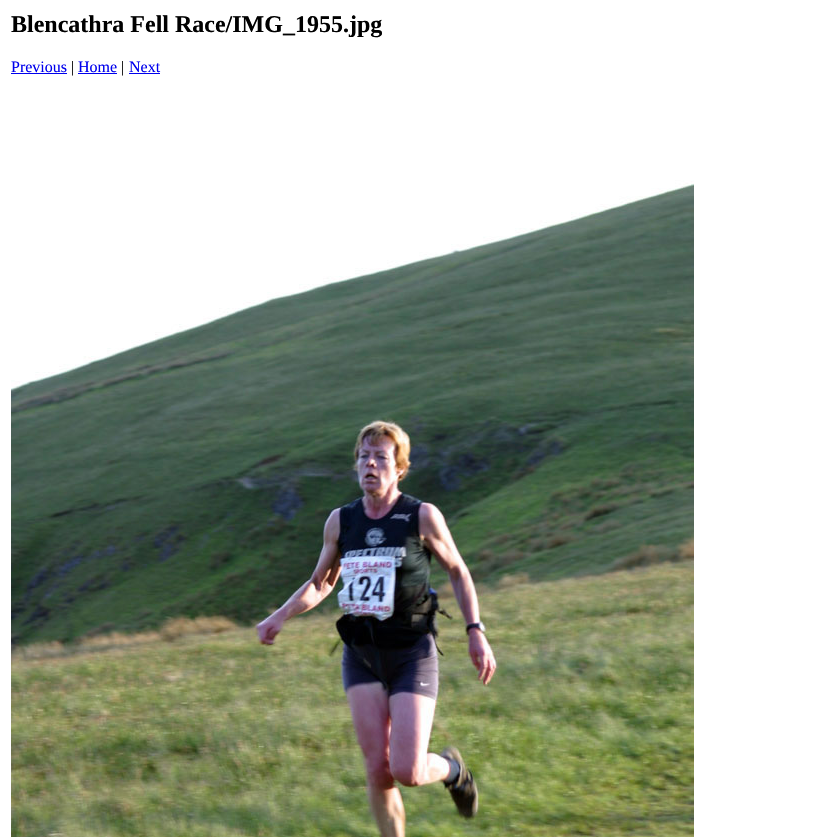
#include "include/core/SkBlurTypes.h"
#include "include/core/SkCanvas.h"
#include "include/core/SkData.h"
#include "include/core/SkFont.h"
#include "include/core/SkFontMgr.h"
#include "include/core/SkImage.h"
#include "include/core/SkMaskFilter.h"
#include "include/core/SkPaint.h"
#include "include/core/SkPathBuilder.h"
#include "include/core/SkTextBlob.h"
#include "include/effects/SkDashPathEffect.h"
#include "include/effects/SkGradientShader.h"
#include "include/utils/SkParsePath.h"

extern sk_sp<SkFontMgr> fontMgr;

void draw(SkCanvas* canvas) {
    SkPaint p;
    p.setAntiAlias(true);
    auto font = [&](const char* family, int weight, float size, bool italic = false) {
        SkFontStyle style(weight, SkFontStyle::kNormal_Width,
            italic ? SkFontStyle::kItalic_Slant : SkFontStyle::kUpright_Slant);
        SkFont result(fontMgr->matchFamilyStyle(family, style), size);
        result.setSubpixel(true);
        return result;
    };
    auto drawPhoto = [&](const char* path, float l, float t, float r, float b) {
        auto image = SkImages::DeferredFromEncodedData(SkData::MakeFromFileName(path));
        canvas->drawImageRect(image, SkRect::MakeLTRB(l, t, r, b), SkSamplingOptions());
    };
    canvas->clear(0xFFFFFFFF);
    auto font1 = font("Liberation Serif", 700, 24);
    p.setColor(0xFF000000);
    canvas->drawString("Blencathra Fell Race/IMG_1955.jpg", 11, 32, font1, p);
    auto font2 = font("Liberation Serif", 400, 16);
    p.setColor(0xFF0000EE);
    canvas->drawString("Previous", 11, 72, font2, p);
    canvas->drawRect(SkRect::MakeLTRB(11, 73, 67, 74), p);
    p.setColor(0xFF000000);
    canvas->drawString("|", 71, 72, font2, p);
    p.setColor(0xFF0000EE);
    canvas->drawString("Home", 78, 72, font2, p);
    canvas->drawRect(SkRect::MakeLTRB(78, 73, 117, 74), p);
    p.setColor(0xFF000000);
    canvas->drawString("|", 121, 72, font2, p);
    p.setColor(0xFF0000EE);
    canvas->drawString("Next", 129, 72, font2, p);
    canvas->drawRect(SkRect::MakeLTRB(129, 73, 160, 74), p);
    drawPhoto("media/1.png", 11, 180, 694, 837);
}
